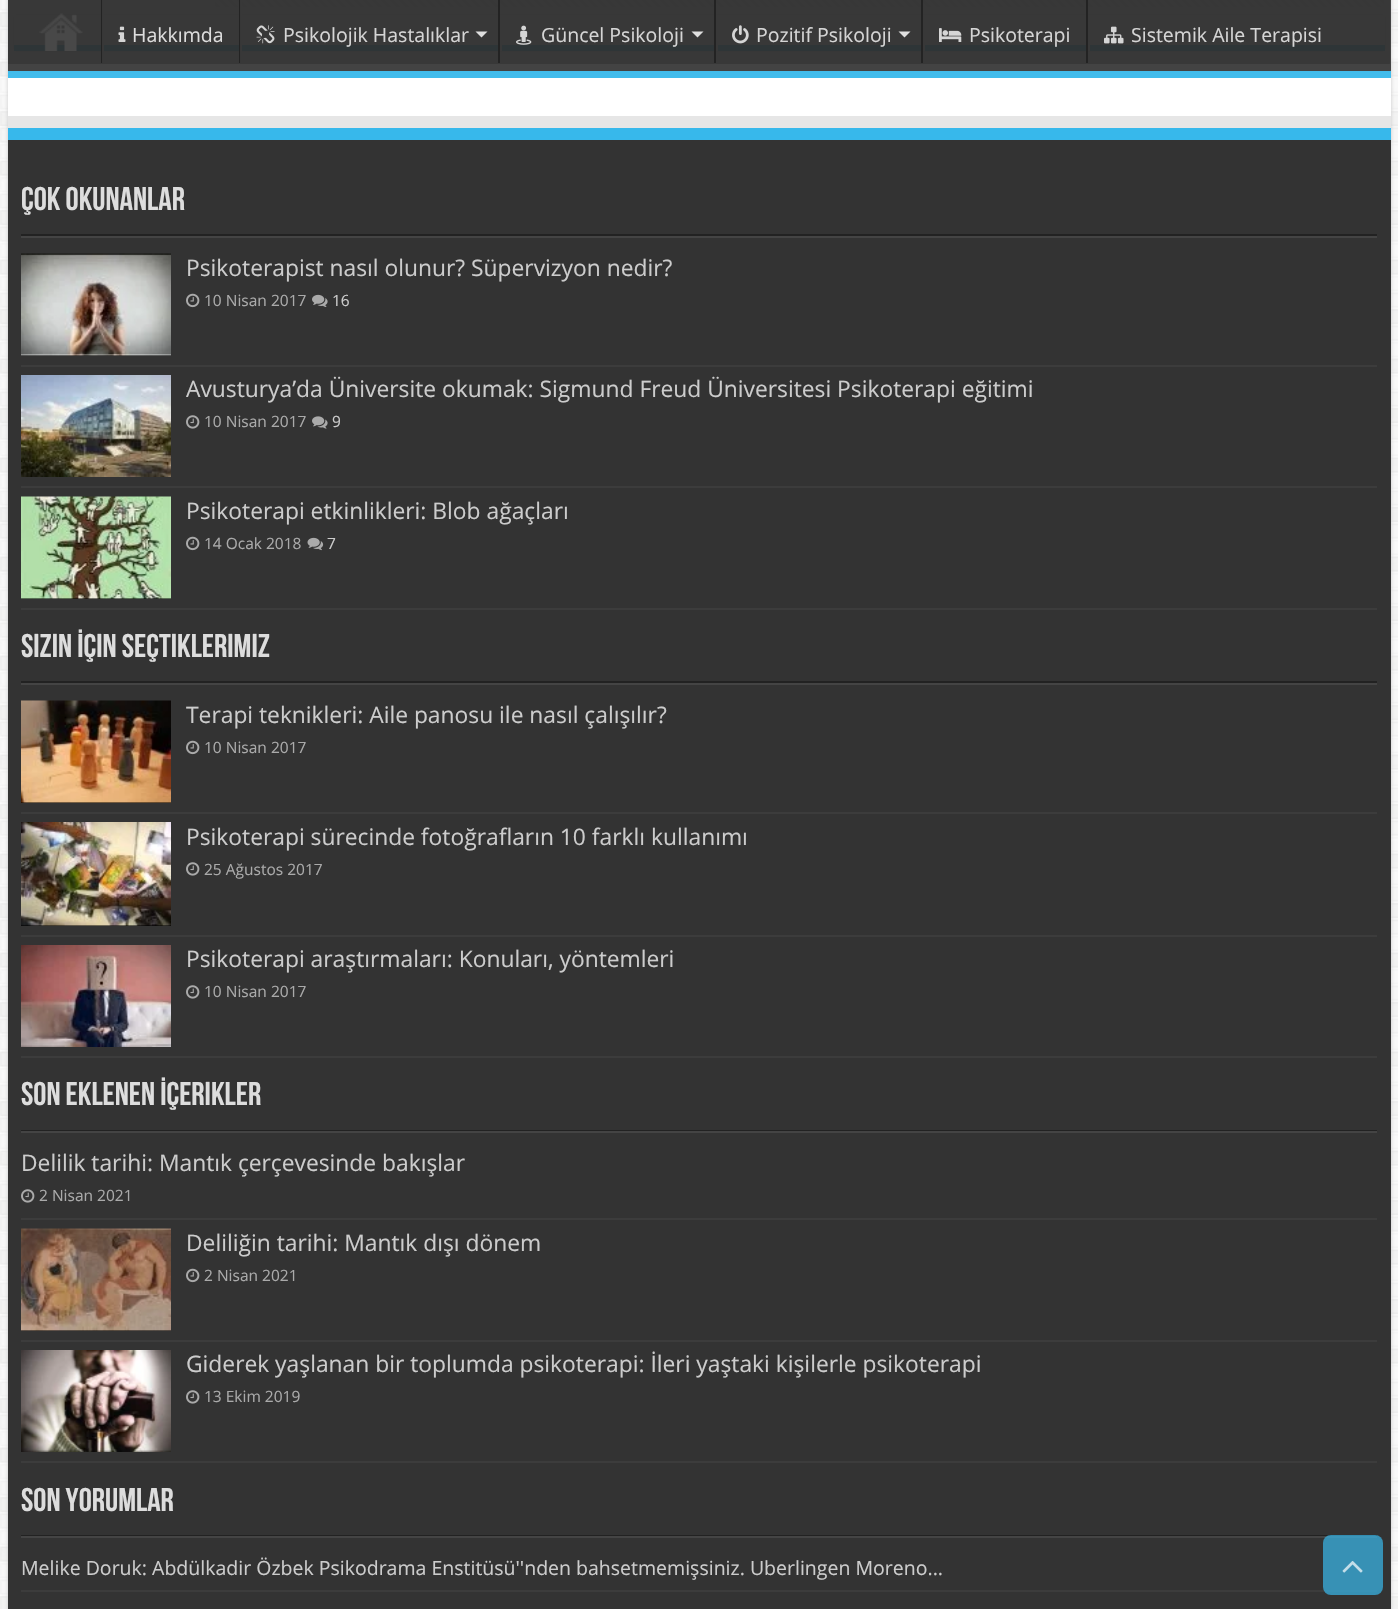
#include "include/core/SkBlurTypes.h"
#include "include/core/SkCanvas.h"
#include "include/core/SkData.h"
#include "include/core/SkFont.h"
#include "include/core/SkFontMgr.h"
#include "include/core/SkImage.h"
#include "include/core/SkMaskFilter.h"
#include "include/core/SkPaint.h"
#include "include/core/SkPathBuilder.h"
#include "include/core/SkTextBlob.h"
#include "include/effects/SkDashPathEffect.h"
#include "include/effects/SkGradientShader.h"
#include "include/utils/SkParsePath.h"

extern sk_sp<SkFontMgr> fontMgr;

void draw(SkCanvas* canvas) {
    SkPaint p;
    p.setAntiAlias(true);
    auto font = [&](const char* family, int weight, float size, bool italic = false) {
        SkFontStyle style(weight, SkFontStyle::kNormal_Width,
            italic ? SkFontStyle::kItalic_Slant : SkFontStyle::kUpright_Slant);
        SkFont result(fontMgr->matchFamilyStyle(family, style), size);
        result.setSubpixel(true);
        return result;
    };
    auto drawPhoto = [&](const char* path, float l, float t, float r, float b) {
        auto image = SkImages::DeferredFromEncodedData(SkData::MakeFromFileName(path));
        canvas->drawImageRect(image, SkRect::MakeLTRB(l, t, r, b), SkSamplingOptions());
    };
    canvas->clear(0xFFFFFFFF);
    drawPhoto("media/1.png", 0, 0, 1398, 1609);
    p.setColor(0xFFCACACA);
    p.setMaskFilter(SkMaskFilter::MakeBlur(kNormal_SkBlurStyle, 2));
    canvas->drawRect(SkRect::MakeLTRB(8, -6, 1391, 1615), p);
    p.setMaskFilter(nullptr);
    p.setColor(0xFFFFFFFF);
    canvas->drawRect(SkRect::MakeLTRB(8, 0, 1391, 116), p);
    drawPhoto("media/2.png", 214, 0, 1385, 8);
    p.setColor(0xFFCACACA);
    p.setMaskFilter(SkMaskFilter::MakeBlur(kNormal_SkBlurStyle, 2));
    canvas->drawRect(SkRect::MakeLTRB(14, 15, 1385, 51), p);
    p.setMaskFilter(nullptr);
    {
        const struct { float l, t, r, b; SkColor color; } items[] = {
            {14, 15, 1385, 45, 0xFFFFFFFF},
            {14, 45, 1385, 51, 0xFF37B8EB},
            {8, 0, 1390, 64, 0xF22D2D2D},
        };
        for (auto [l, t, r, b, color] : items) {
            p.setColor(color);
            canvas->drawRect(SkRect::MakeLTRB(l, t, r, b), p);
        }
    }
    canvas->save();
    canvas->clipRect(SkRect::MakeLTRB(8, 0, 1391, 71));
    p.setColor(0xFF434343);
    canvas->drawPath(SkPathBuilder(SkPathFillType::kEvenOdd).moveTo(-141, -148).lineTo(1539, -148).lineTo(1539, 219).lineTo(-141, 219).close().moveTo(6, -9).lineTo(1389, -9).cubicTo(1390, -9, 1390, -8, 1390, -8).lineTo(1390, 63).cubicTo(1390, 64, 1390, 64, 1389, 64).lineTo(6, 64).cubicTo(5, 64, 4, 64, 4, 63).lineTo(4, -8).cubicTo(4, -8, 5, -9, 6, -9).close().detach(), p);
    canvas->restore();
    p.setColor(0xFF41BCEC);
    canvas->drawRect(SkRect::MakeLTRB(8, 71, 1391, 78), p);
    drawPhoto("media/3.png", 39, 13, 83, 51);
    p.setColor(0xF2222222);
    canvas->drawRect(SkRect::MakeLTRB(101, 0, 103, 63), p);
    p.setColor(0xF2383838);
    canvas->drawRect(SkRect::MakeLTRB(102, 0, 104, 63), p);
    drawPhoto("media/4.png", 118, 26, 126, 42);
    auto font1 = font("Open Sans", 400, 19.5f);
    p.setColor(0xFFDDDDDD);
    canvas->drawString("Hakkımda", 132, 42, font1, p);
    p.setColor(0xF2222222);
    canvas->drawRect(SkRect::MakeLTRB(239, 0, 241, 63), p);
    p.setColor(0xF2383838);
    canvas->drawRect(SkRect::MakeLTRB(240, 0, 242, 63), p);
    drawPhoto("media/5.png", 256, 25, 275, 44);
    p.setColor(0xFFD5D5D5);
    canvas->drawString("Psikolojik Hastalıklar", 283, 42, font1, p);
    p.setColor(0xFFDFDFDF);
    canvas->drawPath(SkPathBuilder().moveTo(475.5f, 31.5f).lineTo(487.5f, 31.5f).lineTo(481.5f, 37.5f).close().detach(), p);
    p.setColor(0xF2222222);
    canvas->drawRect(SkRect::MakeLTRB(498, 0, 500, 63), p);
    p.setColor(0xF2383838);
    canvas->drawRect(SkRect::MakeLTRB(500, 45, 502, 51), p);
    drawPhoto("media/6.png", 516, 25, 532, 45);
    p.setColor(0xFFD5D5D5);
    canvas->drawString("Güncel Psikoloji", 541, 42, font1, p);
    p.setColor(0xFFDFDFDF);
    canvas->drawPath(SkPathBuilder().moveTo(691.5f, 31.5f).lineTo(703.5f, 31.5f).lineTo(697.5f, 37.5f).close().detach(), p);
    p.setColor(0xF2222222);
    canvas->drawRect(SkRect::MakeLTRB(714, 0, 716, 63), p);
    p.setColor(0xF2383838);
    canvas->drawRect(SkRect::MakeLTRB(716, 45, 718, 51), p);
    drawPhoto("media/7.png", 732, 25, 749, 44);
    p.setColor(0xFFD5D5D5);
    canvas->drawString("Pozitif Psikoloji", 756, 42, font1, p);
    p.setColor(0xFFDFDFDF);
    canvas->drawPath(SkPathBuilder().moveTo(898.5f, 31.5f).lineTo(910.5f, 31.5f).lineTo(904.5f, 37.5f).close().detach(), p);
    p.setColor(0xF2222222);
    canvas->drawRect(SkRect::MakeLTRB(921, 0, 923, 63), p);
    p.setColor(0xF2383838);
    canvas->drawRect(SkRect::MakeLTRB(923, 45, 925, 51), p);
    drawPhoto("media/8.png", 939, 28, 962, 42);
    p.setColor(0xFFD5D5D5);
    canvas->drawString("Psikoterapi", 969, 42, font1, p);
    p.setColor(0xF2222222);
    canvas->drawRect(SkRect::MakeLTRB(1086, 0, 1088, 63), p);
    p.setColor(0xF2383838);
    canvas->drawRect(SkRect::MakeLTRB(1088, 45, 1090, 51), p);
    drawPhoto("media/9.png", 1104, 26, 1124, 44);
    p.setColor(0xFFD5D5D5);
    canvas->drawString("Sistemik Aile Terapisi", 1131, 42, font1, p);
    p.setColor(0xFFE6E6E6);
    canvas->drawPath(SkPathBuilder().moveTo(8, 116).lineTo(8, 128).lineTo(1390, 128).lineTo(1390, 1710).lineTo(1391, 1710).lineTo(1391, 116).close().detach(), p);
    {
        const struct { float l, t, r, b; SkColor color; } items[] = {
            {8, 140, 1391, 1609, 0xFF333333},
            {8, 128, 1391, 140, 0xFF37B8EB},
            {21, 234, 1377, 236, 0xFF222222},
        };
        for (auto [l, t, r, b, color] : items) {
            p.setColor(color);
            canvas->drawRect(SkRect::MakeLTRB(l, t, r, b), p);
        }
    }
    auto font2 = font("Bebas Neue", 700, 33);
    p.setColor(0xFFDDDDDD);
    canvas->drawString("Çok Okunanlar", 21, 210, font2, p);
    {
        const struct { float l, t, r, b; SkColor color; } items[] = {
            {21, 236, 1377, 238, 0xFF444444},
            {21, 365, 1377, 367, 0xFF3C3C3C},
            {21, 355, 171, 356, 0xFF000000},
        };
        for (auto [l, t, r, b, color] : items) {
            p.setColor(color);
            canvas->drawRect(SkRect::MakeLTRB(l, t, r, b), p);
        }
    }
    drawPhoto("media/10.png", 21, 253, 171, 356);
    auto font3 = font("Open Sans", 400, 22.8f);
    p.setColor(0xFFCCCCCC);
    canvas->drawString("Psikoterapist nasıl olunur? Süpervizyon nedir?", 186, 276, font3, p);
    drawPhoto("media/11.png", 186, 293, 200, 308);
    auto font4 = font("Open Sans", 400, 15.5f);
    p.setColor(0xFFAAAAAA);
    canvas->drawString("10 Nisan 2017", 204, 306, font4, p);
    drawPhoto("media/12.png", 312, 294, 328, 307);
    p.setColor(0xFFCCCCCC);
    canvas->drawString("16", 332, 306, font4, p);
    p.setColor(0xFF3C3C3C);
    canvas->drawRect(SkRect::MakeLTRB(21, 486, 1377, 488), p);
    drawPhoto("media/13.png", 21, 375, 171, 477);
    p.setColor(0xFFCCCCCC);
    canvas->drawString("Avusturya’da Üniversite okumak: Sigmund Freud Üniversitesi Psikoterapi eğitimi", 186, 397, font3, p);
    drawPhoto("media/14.png", 186, 415, 200, 429);
    p.setColor(0xFFAAAAAA);
    canvas->drawString("10 Nisan 2017", 204, 427, font4, p);
    drawPhoto("media/15.png", 312, 416, 328, 429);
    p.setColor(0xFFCCCCCC);
    canvas->drawString("9", 332, 427, font4, p);
    p.setColor(0xFF3C3C3C);
    canvas->drawRect(SkRect::MakeLTRB(21, 608, 1377, 610), p);
    p.setColor(0xFF000000);
    canvas->drawRect(SkRect::MakeLTRB(21, 598, 171, 599), p);
    drawPhoto("media/16.png", 21, 496, 171, 599);
    p.setColor(0xFFCCCCCC);
    canvas->drawString("Psikoterapi etkinlikleri: Blob ağaçları", 186, 519, font3, p);
    drawPhoto("media/11.png", 186, 536, 200, 551);
    p.setColor(0xFFAAAAAA);
    canvas->drawString("14 Ocak 2018", 204, 549, font4, p);
    drawPhoto("media/17.png", 307, 537, 324, 551);
    p.setColor(0xFFCCCCCC);
    canvas->drawString("7", 327, 549, font4, p);
    p.setColor(0xFF222222);
    canvas->drawRect(SkRect::MakeLTRB(21, 681, 1377, 683), p);
    p.setColor(0xFFDDDDDD);
    canvas->drawString("Sizin İçin Seçtiklerimiz", 21, 657, font2, p);
    {
        const struct { float l, t, r, b; SkColor color; } items[] = {
            {21, 683, 1377, 685, 0xFF444444},
            {21, 812, 1377, 814, 0xFF3C3C3C},
            {21, 802, 171, 803, 0xFF000000},
        };
        for (auto [l, t, r, b, color] : items) {
            p.setColor(color);
            canvas->drawRect(SkRect::MakeLTRB(l, t, r, b), p);
        }
    }
    drawPhoto("media/18.png", 21, 700, 171, 803);
    p.setColor(0xFFCCCCCC);
    canvas->drawString("Terapi teknikleri: Aile panosu ile nasıl çalışılır?", 186, 723, font3, p);
    drawPhoto("media/11.png", 186, 740, 200, 755);
    p.setColor(0xFFAAAAAA);
    canvas->drawString("10 Nisan 2017", 204, 753, font4, p);
    p.setColor(0xFF3C3C3C);
    canvas->drawRect(SkRect::MakeLTRB(21, 935, 1377, 937), p);
    p.setColor(0xFF000000);
    canvas->drawRect(SkRect::MakeLTRB(21, 925, 171, 926), p);
    drawPhoto("media/19.png", 21, 822, 171, 926);
    p.setColor(0xFFCCCCCC);
    canvas->drawString("Psikoterapi sürecinde fotoğrafların 10 farklı kullanımı", 186, 845, font3, p);
    drawPhoto("media/14.png", 186, 862, 200, 876);
    p.setColor(0xFFAAAAAA);
    canvas->drawString("25 Ağustos 2017", 204, 875, font4, p);
    p.setColor(0xFF3C3C3C);
    canvas->drawRect(SkRect::MakeLTRB(21, 1056, 1377, 1058), p);
    drawPhoto("media/20.png", 21, 945, 171, 1047);
    p.setColor(0xFFCCCCCC);
    canvas->drawString("Psikoterapi araştırmaları: Konuları, yöntemleri", 186, 967, font3, p);
    drawPhoto("media/14.png", 186, 985, 200, 999);
    p.setColor(0xFFAAAAAA);
    canvas->drawString("10 Nisan 2017", 204, 997, font4, p);
    p.setColor(0xFF222222);
    canvas->drawRect(SkRect::MakeLTRB(21, 1130, 1377, 1131), p);
    p.setColor(0xFFDDDDDD);
    canvas->drawString("Son Eklenen İçerikler", 21, 1105, font2, p);
    p.setColor(0xFF444444);
    canvas->drawRect(SkRect::MakeLTRB(21, 1131, 1377, 1133), p);
    p.setColor(0xFF3C3C3C);
    canvas->drawRect(SkRect::MakeLTRB(21, 1218, 1377, 1220), p);
    p.setColor(0xFFCCCCCC);
    canvas->drawString("Delilik tarihi: Mantık çerçevesinde bakışlar", 21, 1171, font3, p);
    drawPhoto("media/14.png", 21, 1189, 35, 1203);
    p.setColor(0xFFAAAAAA);
    canvas->drawString("2 Nisan 2021", 39, 1201, font4, p);
    p.setColor(0xFF3C3C3C);
    canvas->drawRect(SkRect::MakeLTRB(21, 1340, 1377, 1342), p);
    p.setColor(0xFF000000);
    canvas->drawRect(SkRect::MakeLTRB(21, 1330, 171, 1331), p);
    drawPhoto("media/21.png", 21, 1228, 171, 1331);
    p.setColor(0xFFCCCCCC);
    canvas->drawString("Deliliğin tarihi: Mantık dışı dönem", 186, 1251, font3, p);
    drawPhoto("media/11.png", 186, 1268, 200, 1283);
    p.setColor(0xFFAAAAAA);
    canvas->drawString("2 Nisan 2021", 204, 1281, font4, p);
    p.setColor(0xFF3C3C3C);
    canvas->drawRect(SkRect::MakeLTRB(21, 1461, 1377, 1463), p);
    drawPhoto("media/22.png", 21, 1350, 171, 1452);
    p.setColor(0xFFCCCCCC);
    canvas->drawString("Giderek yaşlanan bir toplumda psikoterapi: İleri yaştaki kişilerle psikoterapi", 186, 1372, font3, p);
    drawPhoto("media/14.png", 186, 1390, 200, 1404);
    p.setColor(0xFFAAAAAA);
    canvas->drawString("13 Ekim 2019", 204, 1402, font4, p);
    p.setColor(0xFF222222);
    canvas->drawRect(SkRect::MakeLTRB(21, 1535, 1377, 1536), p);
    p.setColor(0xFFDDDDDD);
    canvas->drawString("Son Yorumlar", 21, 1511, font2, p);
    p.setColor(0xFF444444);
    canvas->drawRect(SkRect::MakeLTRB(21, 1536, 1377, 1538), p);
    p.setColor(0xFF3C3C3C);
    canvas->drawRect(SkRect::MakeLTRB(21, 1590, 1377, 1592), p);
    p.setColor(0xFFCCCCCC);
    canvas->drawString("Melike Doruk: Abdülkadir Özbek Psikodrama Enstitüsü''nden bahsetmemişsiniz. Uberlingen Moreno...", 21, 1575, font1, p);
    p.setColor(0xB337B8EB);
    canvas->drawRoundRect(SkRect::MakeLTRB(1323, 1535, 1383, 1595), 8, 8, p);
    drawPhoto("media/23.png", 1342, 1561, 1363, 1573);
}
